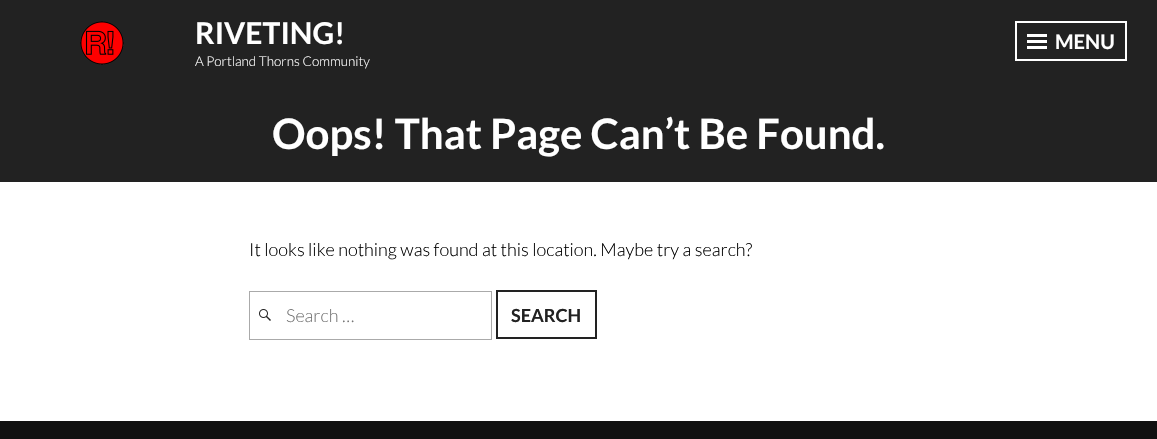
#include "include/core/SkBlurTypes.h"
#include "include/core/SkCanvas.h"
#include "include/core/SkData.h"
#include "include/core/SkFont.h"
#include "include/core/SkFontMgr.h"
#include "include/core/SkImage.h"
#include "include/core/SkMaskFilter.h"
#include "include/core/SkPaint.h"
#include "include/core/SkPathBuilder.h"
#include "include/core/SkTextBlob.h"
#include "include/effects/SkDashPathEffect.h"
#include "include/effects/SkGradientShader.h"
#include "include/utils/SkParsePath.h"

extern sk_sp<SkFontMgr> fontMgr;

void draw(SkCanvas* canvas) {
    SkPaint p;
    p.setAntiAlias(true);
    auto font = [&](const char* family, int weight, float size, bool italic = false) {
        SkFontStyle style(weight, SkFontStyle::kNormal_Width,
            italic ? SkFontStyle::kItalic_Slant : SkFontStyle::kUpright_Slant);
        SkFont result(fontMgr->matchFamilyStyle(family, style), size);
        result.setSubpixel(true);
        return result;
    };
    auto drawPhoto = [&](const char* path, float l, float t, float r, float b) {
        auto image = SkImages::DeferredFromEncodedData(SkData::MakeFromFileName(path));
        canvas->drawImageRect(image, SkRect::MakeLTRB(l, t, r, b), SkSamplingOptions());
    };
    canvas->clear(0xFFFFFFFF);
    p.setColor(0xFF222222);
    canvas->drawRect(SkRect::MakeLTRB(0, 0, 1157, 182), p);
    drawPhoto("media/1.png", 80, 21, 124, 65);
    auto font1 = font("Lato", 700, 30);
    p.setColor(0xFFFFFFFF);
    canvas->drawString("RIVETING!", 195, 44, font1, p);
    auto font2 = font("Lato", 300, 13.5f);
    canvas->drawString("A Portland Thorns Community", 195, 66, font2, p);
    p.setStyle(SkPaint::kStroke_Style);
    p.setStrokeWidth(2);
    canvas->drawRect(SkRect::MakeLTRB(1016, 22, 1126, 60), p);
    p.setStyle(SkPaint::kFill_Style);
    {
        const struct { float l, t, r, b; SkColor color; } items[] = {
            {1027, 40, 1047, 43, 0xFFFFFFFF},
            {1027, 34, 1047, 37, 0xFFFFFFFF},
            {1027, 46, 1047, 49, 0xFFFFFFFF},
        };
        for (auto [l, t, r, b, color] : items) {
            p.setColor(color);
            canvas->drawRect(SkRect::MakeLTRB(l, t, r, b), p);
        }
    }
    auto font3 = font("Lato", 700, 20);
    canvas->drawString("MENU", 1055, 49, font3, p);
    auto font4 = font("Lato", 700, 42);
    canvas->drawString("Oops! That Page Can’t Be Found.", 272, 149, font4, p);
    auto font5 = font("Lato", 300, 18);
    p.setColor(0xFF000000);
    canvas->drawString("It looks like nothing was found at this location. Maybe try a search?", 249, 256, font5, p);
    p.setStyle(SkPaint::kStroke_Style);
    p.setStrokeWidth(1);
    p.setColor(0xFFAAAAAA);
    canvas->drawRect(SkRect::MakeLTRB(249.5f, 291.5f, 491.5f, 339.5f), p);
    drawPhoto("media/2.png", 259, 309, 271, 321);
    p.setStyle(SkPaint::kFill_Style);
    p.setColor(0xFF757575);
    canvas->drawString("Search …", 286, 322, font5, p);
    p.setStyle(SkPaint::kStroke_Style);
    p.setStrokeWidth(2);
    p.setColor(0xFF222222);
    canvas->drawRect(SkRect::MakeLTRB(497, 291, 596, 338), p);
    auto font6 = font("Lato", 700, 18);
    p.setStyle(SkPaint::kFill_Style);
    canvas->drawString("SEARCH", 511, 322, font6, p);
    p.setColor(0xFF111111);
    canvas->drawRect(SkRect::MakeLTRB(0, 421, 1157, 439), p);
}
